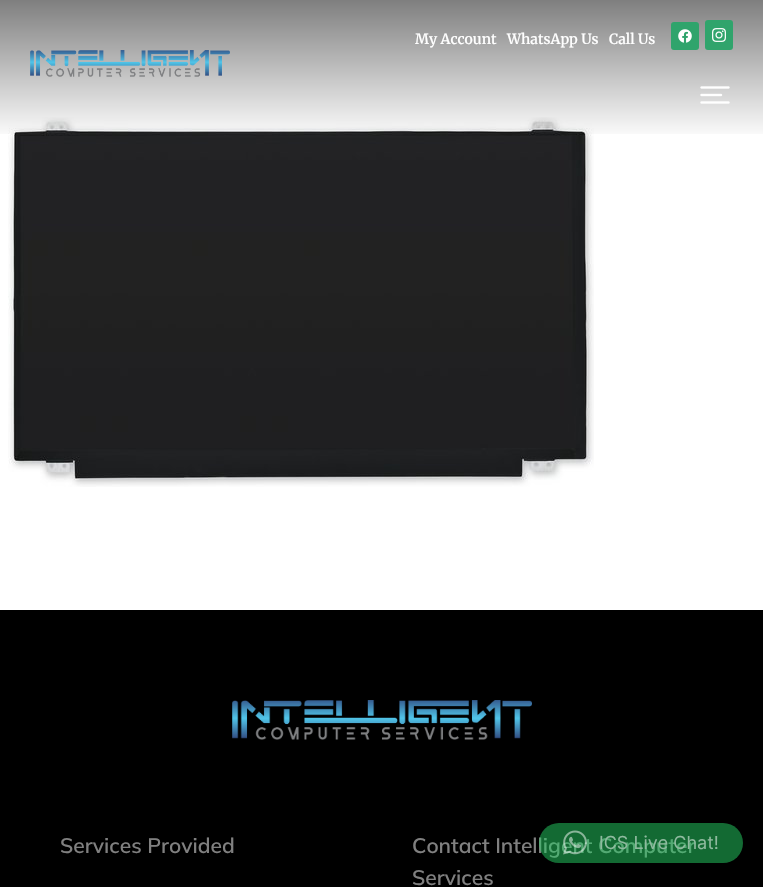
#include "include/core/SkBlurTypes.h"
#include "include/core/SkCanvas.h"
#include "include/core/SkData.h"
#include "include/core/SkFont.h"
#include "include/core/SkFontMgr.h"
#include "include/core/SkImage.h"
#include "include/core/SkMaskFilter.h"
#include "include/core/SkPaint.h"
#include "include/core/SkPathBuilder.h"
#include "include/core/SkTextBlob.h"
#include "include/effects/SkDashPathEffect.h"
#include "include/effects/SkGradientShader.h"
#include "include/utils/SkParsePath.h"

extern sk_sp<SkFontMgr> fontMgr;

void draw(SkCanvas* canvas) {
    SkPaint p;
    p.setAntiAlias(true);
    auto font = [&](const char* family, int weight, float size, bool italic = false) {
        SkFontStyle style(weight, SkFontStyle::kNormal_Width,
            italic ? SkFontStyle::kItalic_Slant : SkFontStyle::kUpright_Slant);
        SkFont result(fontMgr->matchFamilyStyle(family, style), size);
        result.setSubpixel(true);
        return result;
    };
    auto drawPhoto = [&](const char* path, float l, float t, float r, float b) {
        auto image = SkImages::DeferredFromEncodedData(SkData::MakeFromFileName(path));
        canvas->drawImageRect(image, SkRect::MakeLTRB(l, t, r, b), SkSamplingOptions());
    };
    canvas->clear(0xFFFFFFFF);
    drawPhoto("media/5.png", 8, 117, 594, 487);
    {
        const SkColor colors[] = {0x80000000, 0x00000000};
        const float stops[] = {0, 1};
        const SkPoint ends[] = {{382, 0}, {382, 140}};
        p.setShader(SkGradientShader::MakeLinear(ends, colors, stops, 2, SkTileMode::kClamp));
        p.setAlpha(255);
    }
    canvas->drawRect(SkRect::MakeLTRB(0, 0, 763, 134), p);
    auto font1 = font("Merriweather", 600, 14);
    p.setShader(nullptr);
    p.setColor(0xFFFFFFFF);
    {
        const struct { const char* s; float x, y; } items[] = {
            {"My Account", 415, 44},
            {"WhatsApp Us", 507, 44},
            {"Call Us", 609, 44},
        };
        for (auto [s, x, y] : items) {
            canvas->drawString(s, x, y, font1, p);
        }
    }
    p.setColor(0xFF30A46C);
    canvas->drawRoundRect(SkRect::MakeLTRB(671, 22, 699, 50), 3, 3, p);
    drawPhoto("media/1.png", 678, 29, 692, 43);
    canvas->drawRoundRect(SkRect::MakeLTRB(705, 20, 733, 50), 3, 3, p);
    drawPhoto("media/2.png", 712, 28, 726, 42);
    drawPhoto("media/3.png", 30, 50, 230, 77);
    drawPhoto("media/4.png", 700, 86, 730, 104);
    p.setColor(0xFF000000);
    canvas->drawRect(SkRect::MakeLTRB(0, 610, 763, 887), p);
    drawPhoto("media/6.png", 232, 700, 532, 740);
    auto font2 = font("Mulish", 600, 21);
    p.setColor(0xFF808080);
    {
        const struct { const char* s; float x, y; } items[] = {
            {"Services Provided", 60, 853},
            {"Contact Intelligent Computer", 412, 853},
            {"Services", 412, 885},
        };
        for (auto [s, x, y] : items) {
            canvas->drawString(s, x, y, font2, p);
        }
    }
    p.setColor(0x8025D366);
    canvas->drawRoundRect(SkRect::MakeLTRB(539, 823, 743, 863), 20, 20, p);
    drawPhoto("media/7.png", 563, 830, 587, 855);
    auto font3 = font("Inter", 400, 18);
    p.setColor(0xFF8FBA9F);
    canvas->drawString("ICS Live Chat!", 599, 849, font3, p);
}
